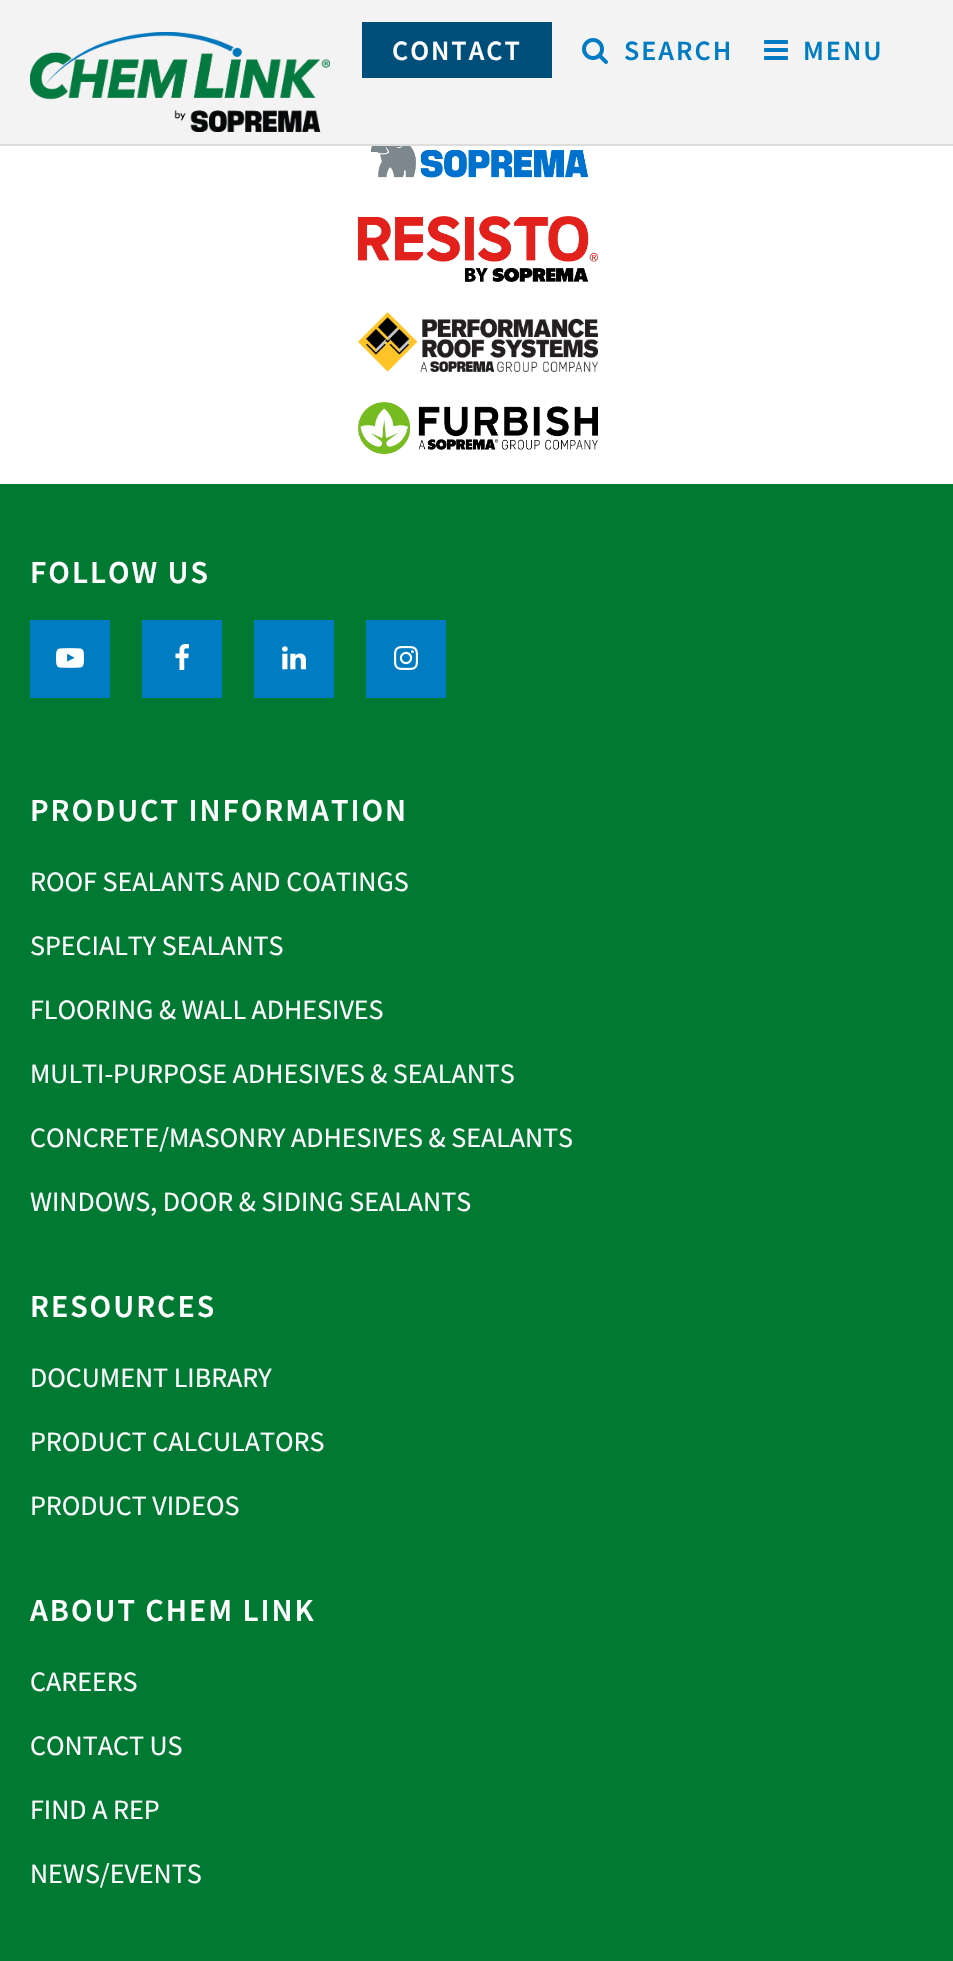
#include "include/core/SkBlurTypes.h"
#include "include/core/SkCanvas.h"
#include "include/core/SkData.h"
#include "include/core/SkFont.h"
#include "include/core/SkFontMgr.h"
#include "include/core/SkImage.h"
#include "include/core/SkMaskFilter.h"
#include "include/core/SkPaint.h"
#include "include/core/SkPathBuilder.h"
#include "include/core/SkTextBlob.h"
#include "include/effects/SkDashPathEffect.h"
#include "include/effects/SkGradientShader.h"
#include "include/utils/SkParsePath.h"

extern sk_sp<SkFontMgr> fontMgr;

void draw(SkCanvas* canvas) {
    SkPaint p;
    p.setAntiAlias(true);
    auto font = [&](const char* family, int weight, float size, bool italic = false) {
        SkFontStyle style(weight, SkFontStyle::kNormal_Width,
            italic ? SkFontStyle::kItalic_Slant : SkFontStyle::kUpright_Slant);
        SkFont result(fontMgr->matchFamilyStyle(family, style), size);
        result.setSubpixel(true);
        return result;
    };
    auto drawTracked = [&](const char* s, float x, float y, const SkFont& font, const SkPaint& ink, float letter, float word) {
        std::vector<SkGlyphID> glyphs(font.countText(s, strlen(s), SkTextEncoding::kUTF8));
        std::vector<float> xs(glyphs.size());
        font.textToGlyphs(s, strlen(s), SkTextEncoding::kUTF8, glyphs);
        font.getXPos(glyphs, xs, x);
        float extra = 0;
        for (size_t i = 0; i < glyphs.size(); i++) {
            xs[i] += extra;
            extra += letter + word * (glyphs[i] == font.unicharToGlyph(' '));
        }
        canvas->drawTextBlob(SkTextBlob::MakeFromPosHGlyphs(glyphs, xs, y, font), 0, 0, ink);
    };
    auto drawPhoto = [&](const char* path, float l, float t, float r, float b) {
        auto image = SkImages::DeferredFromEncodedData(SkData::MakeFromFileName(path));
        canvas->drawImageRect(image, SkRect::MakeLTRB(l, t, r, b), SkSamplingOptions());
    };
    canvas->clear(0xFFFFFFFF);
    p.setColor(0xFFF3F3F3);
    canvas->drawRect(SkRect::MakeLTRB(0, 0, 953, 144), p);
    p.setColor(0xFFDDDDDD);
    canvas->drawRect(SkRect::MakeLTRB(0, 144, 953, 146), p);
    drawPhoto("media/1.png", 30, 32, 330, 132);
    p.setColor(0xFF004E7A);
    canvas->drawRect(SkRect::MakeLTRB(362, 22, 552, 78), p);
    auto font1 = font("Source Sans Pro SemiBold", 600, 28);
    p.setColor(0xFFFFFFFF);
    drawTracked("CONTACT", 392, 60, font1, p, 2, 0);
    drawPhoto("media/2.png", 582, 38, 608, 64);
    p.setColor(0xFF007CC3);
    drawTracked("SEARCH", 624, 60, font1, p, 2, 0);
    drawPhoto("media/3.png", 764, 40, 788, 60);
    drawTracked("MENU", 803, 60, font1, p, 2, 0);
    drawPhoto("media/4.png", 371, 146, 589, 178);
    drawPhoto("media/5.png", 358, 216, 598, 282);
    drawPhoto("media/6.png", 358, 312, 598, 372);
    drawPhoto("media/7.png", 358, 402, 598, 454);
    p.setColor(0xFF007A33);
    canvas->drawRect(SkRect::MakeLTRB(0, 484, 953, 1961), p);
    auto font2 = font("Source Sans Pro SemiBold", 600, 32);
    p.setColor(0xFFFFFFFF);
    drawTracked("FOLLOW US", 30, 583, font2, p, 2, 0);
    p.setColor(0xFF007CC3);
    canvas->drawRect(SkRect::MakeLTRB(30, 620, 110, 698), p);
    drawPhoto("media/8.png", 56, 648, 84, 668);
    canvas->drawRect(SkRect::MakeLTRB(142, 620, 222, 698), p);
    drawPhoto("media/9.png", 175, 644, 189, 670);
    canvas->drawRect(SkRect::MakeLTRB(254, 620, 334, 698), p);
    drawPhoto("media/10.png", 282, 646, 306, 670);
    canvas->drawRect(SkRect::MakeLTRB(366, 620, 446, 698), p);
    drawPhoto("media/11.png", 394, 646, 418, 670);
    p.setColor(0xFFFFFFFF);
    drawTracked("PRODUCT INFORMATION", 30, 821, font2, p, 2, 0);
    auto font3 = font("Source Sans Pro", 400, 28);
    {
        const struct { const char* s; float x, y; } items[] = {
            {"ROOF SEALANTS AND COATINGS", 30, 891},
            {"SPECIALTY SEALANTS", 30, 955},
            {"FLOORING & WALL ADHESIVES", 30, 1019},
            {"MULTI-PURPOSE ADHESIVES & SEALANTS", 30, 1083},
            {"CONCRETE/MASONRY ADHESIVES & SEALANTS", 30, 1147},
            {"WINDOWS, DOOR & SIDING SEALANTS", 30, 1211},
        };
        for (auto [s, x, y] : items) {
            canvas->drawString(s, x, y, font3, p);
        }
    }
    drawTracked("RESOURCES", 30, 1317, font2, p, 2, 0);
    {
        const struct { const char* s; float x, y; } items[] = {
            {"DOCUMENT LIBRARY", 30, 1387},
            {"PRODUCT CALCULATORS", 30, 1451},
            {"PRODUCT VIDEOS", 30, 1515},
        };
        for (auto [s, x, y] : items) {
            canvas->drawString(s, x, y, font3, p);
        }
    }
    drawTracked("ABOUT CHEM LINK", 30, 1621, font2, p, 2, 0);
    {
        const struct { const char* s; float x, y; } items[] = {
            {"CAREERS", 30, 1691},
            {"CONTACT US", 30, 1755},
            {"FIND A REP", 30, 1819},
            {"NEWS/EVENTS", 30, 1883},
        };
        for (auto [s, x, y] : items) {
            canvas->drawString(s, x, y, font3, p);
        }
    }
}
